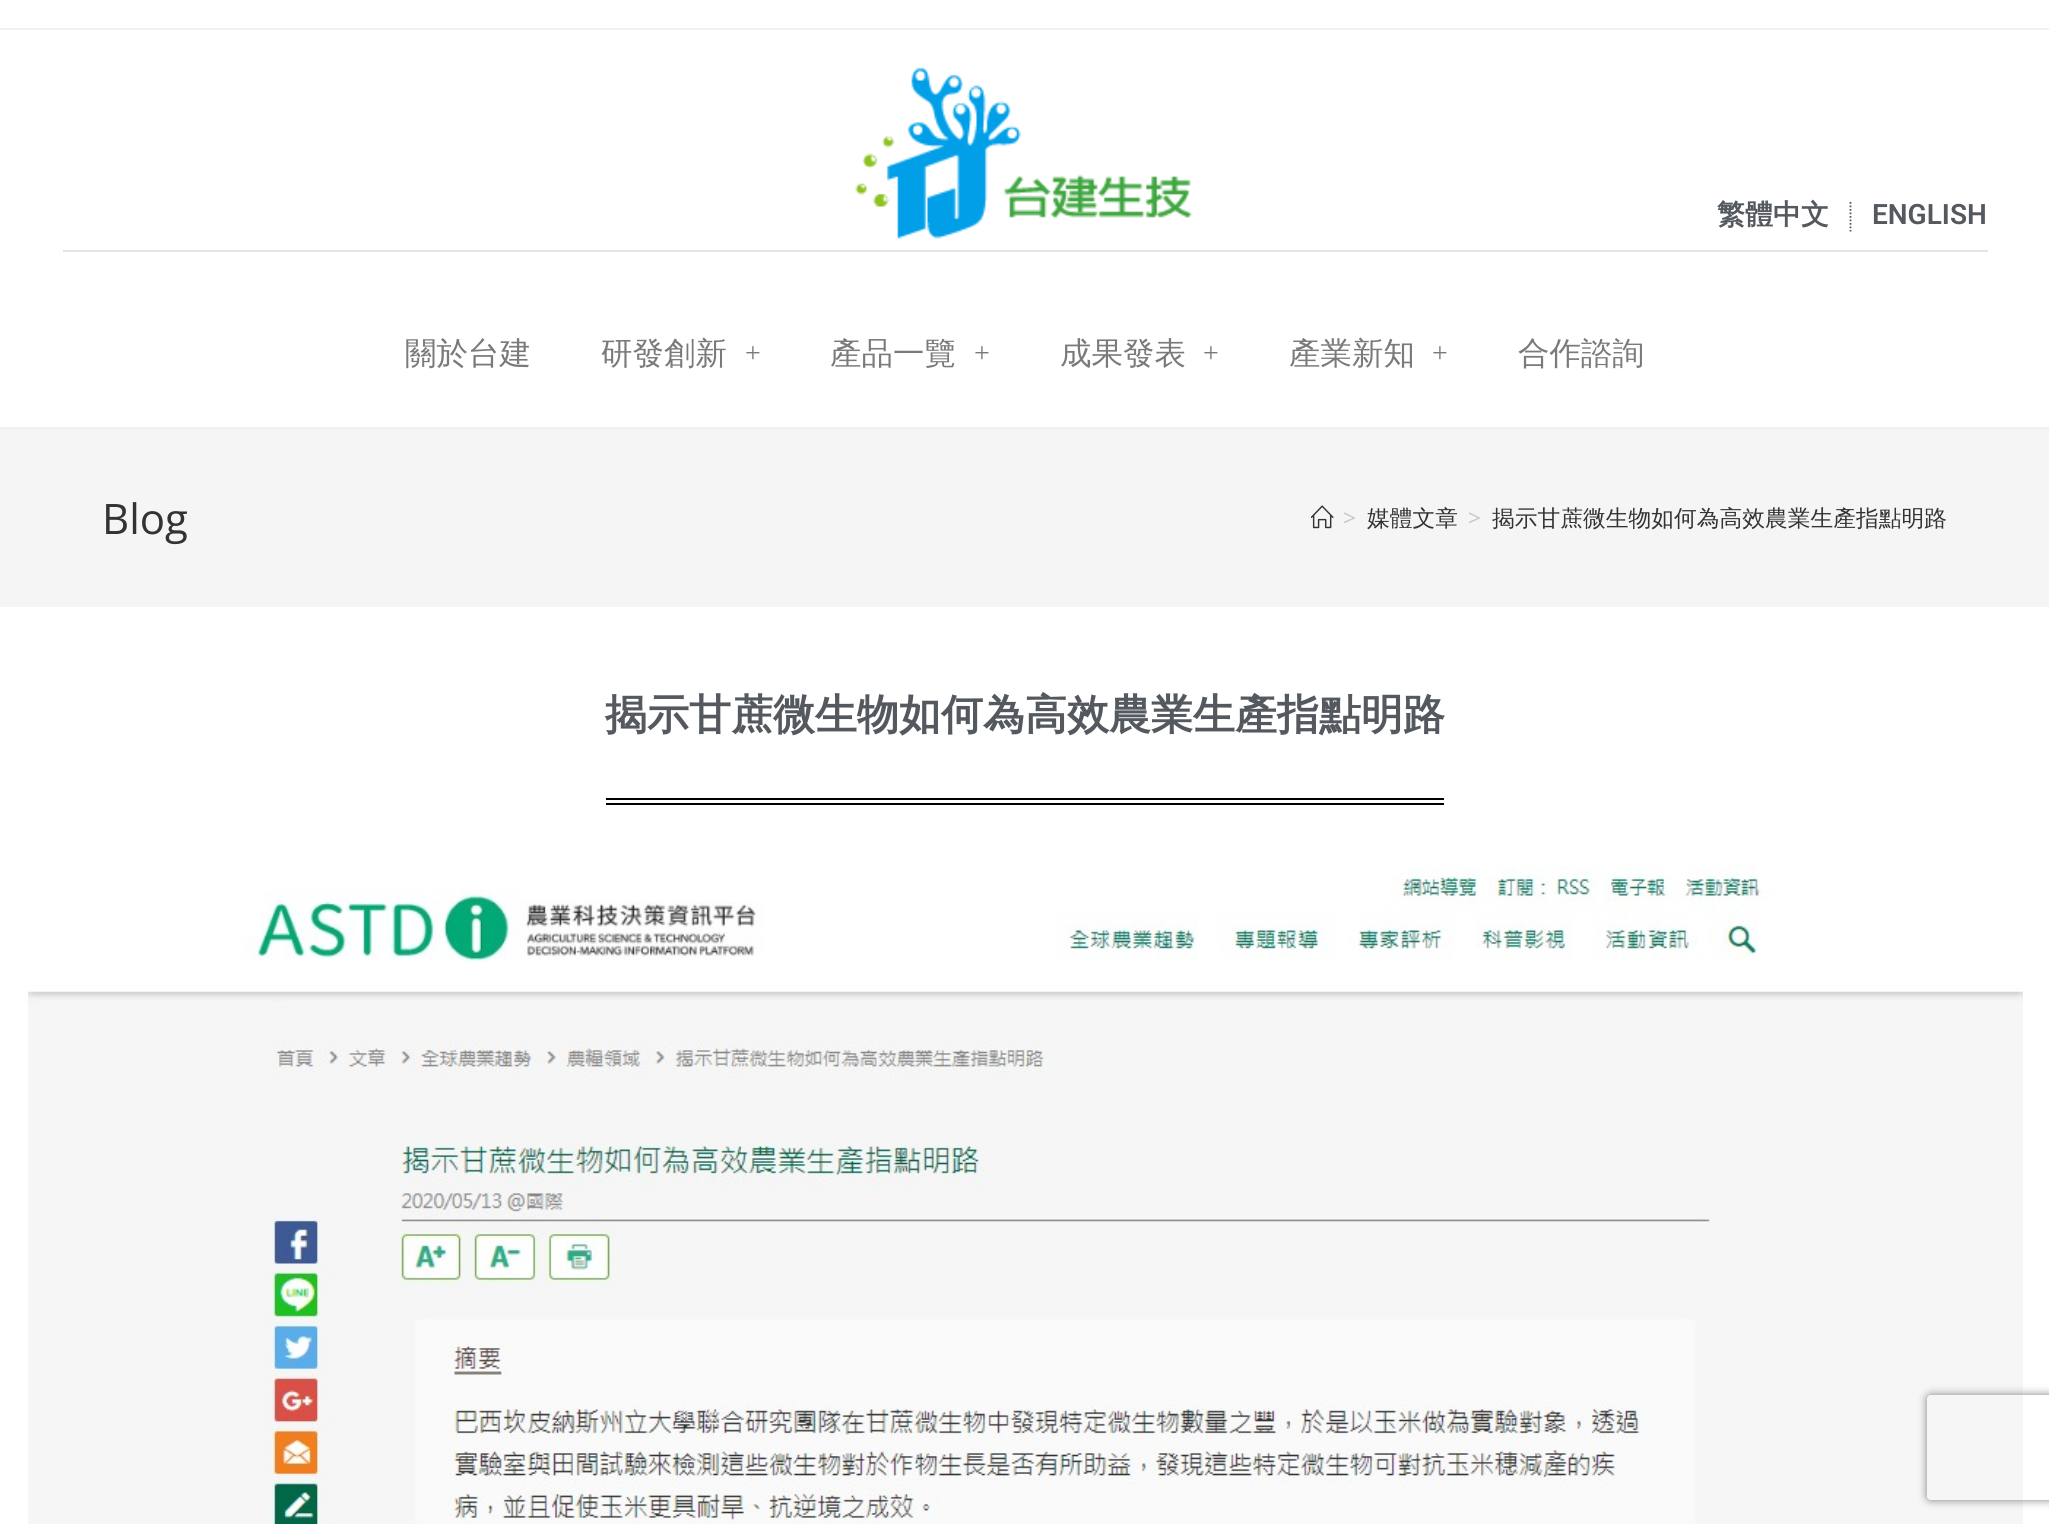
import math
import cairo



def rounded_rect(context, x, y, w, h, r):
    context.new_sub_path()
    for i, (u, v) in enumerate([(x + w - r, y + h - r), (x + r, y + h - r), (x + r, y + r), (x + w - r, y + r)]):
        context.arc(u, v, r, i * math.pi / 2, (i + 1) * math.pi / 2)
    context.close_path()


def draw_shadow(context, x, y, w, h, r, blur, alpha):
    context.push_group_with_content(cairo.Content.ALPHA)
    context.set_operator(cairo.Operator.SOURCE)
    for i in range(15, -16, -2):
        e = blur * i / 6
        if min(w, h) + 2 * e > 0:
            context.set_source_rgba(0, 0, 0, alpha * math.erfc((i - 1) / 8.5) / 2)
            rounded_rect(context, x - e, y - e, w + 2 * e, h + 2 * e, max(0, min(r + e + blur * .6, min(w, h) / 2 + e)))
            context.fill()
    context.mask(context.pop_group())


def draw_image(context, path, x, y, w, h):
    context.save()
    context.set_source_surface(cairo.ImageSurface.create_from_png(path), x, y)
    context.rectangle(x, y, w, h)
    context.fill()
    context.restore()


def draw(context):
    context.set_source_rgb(1, 1, 1)
    context.paint()
    context.set_source_rgb(241 / 255, 241 / 255, 241 / 255)
    context.rectangle(0, 28, 2049, 2)
    context.fill()
    context.rectangle(0, 427, 2049, 2)
    context.fill()
    draw_image(context, "images/1.png", 855, 67, 338, 172)
    context.new_path()
    context.move_to(1850.5, 202)
    context.line_to(1850.5, 231.5)
    context.set_source_rgb(84 / 255, 89 / 255, 95 / 255)
    context.set_line_width(1.8)
    context.set_dash([1.75, 1.75])
    context.stroke()
    context.set_source_rgb(229 / 255, 229 / 255, 229 / 255)
    context.rectangle(63, 250, 1925, 2)
    context.fill()
    context.set_source_rgb(245 / 255, 245 / 255, 245 / 255)
    context.rectangle(0, 429, 2049, 178)
    context.fill()
    draw_image(context, "images/2.png", 1311, 505, 23, 24)
    context.set_source_rgb(0, 0, 0)
    context.rectangle(606, 798, 838, 2)
    context.fill()
    context.rectangle(606, 803, 838, 2)
    context.fill()
    draw_image(context, "images/3.png", 28, 866, 1995, 658)
    context.save()
    context.set_fill_rule(cairo.FillRule.EVEN_ODD)
    context.new_path()
    context.move_to(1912, 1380)
    context.line_to(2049, 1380)
    context.line_to(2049, 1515)
    context.line_to(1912, 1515)
    context.close_path()
    context.move_to(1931, 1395)
    context.line_to(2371, 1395)
    context.curve_to(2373, 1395, 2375, 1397, 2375, 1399)
    context.line_to(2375, 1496)
    context.curve_to(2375, 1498, 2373, 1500, 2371, 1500)
    context.line_to(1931, 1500)
    context.curve_to(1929, 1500, 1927, 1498, 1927, 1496)
    context.line_to(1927, 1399)
    context.curve_to(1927, 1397, 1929, 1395, 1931, 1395)
    context.close_path()
    context.clip()
    context.set_source_rgb(128 / 255, 128 / 255, 128 / 255)
    draw_shadow(context, 1927, 1395, 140, 105, 4, 4.5, 1)
    context.restore()
    context.select_font_face("WenQuanYi Zen Hei", cairo.FontSlant.NORMAL, cairo.FontWeight.BOLD)
    context.set_font_size(28)
    context.set_source_rgb(84 / 255, 89 / 255, 95 / 255)
    context.move_to(1717, 224)
    context.show_text("繁體中文")
    context.select_font_face("Roboto SemiBold")
    context.move_to(1872, 224)
    context.show_text("ENGLISH")
    context.select_font_face("WenQuanYi Zen Hei Medium")
    context.set_font_size(31.5)
    context.set_source_rgb(122 / 255, 122 / 255, 122 / 255)
    context.move_to(405, 364)
    context.show_text("關於台建")
    context.move_to(601, 364)
    context.show_text("研發創新")
    context.select_font_face("Liberation Serif")
    context.set_font_size(28)
    context.move_to(745, 362)
    context.show_text("+")
    context.select_font_face("WenQuanYi Zen Hei Medium")
    context.set_font_size(31.5)
    context.move_to(830, 364)
    context.show_text("產品一覽")
    context.select_font_face("Liberation Serif")
    context.set_font_size(28)
    context.move_to(974, 362)
    context.show_text("+")
    context.select_font_face("WenQuanYi Zen Hei Medium")
    context.set_font_size(31.5)
    context.move_to(1060, 364)
    context.show_text("成果發表")
    context.select_font_face("Liberation Serif")
    context.set_font_size(28)
    context.move_to(1203, 362)
    context.show_text("+")
    context.select_font_face("WenQuanYi Zen Hei Medium")
    context.set_font_size(31.5)
    context.move_to(1289, 364)
    context.show_text("產業新知")
    context.select_font_face("Liberation Serif")
    context.set_font_size(28)
    context.move_to(1432, 362)
    context.show_text("+")
    context.select_font_face("WenQuanYi Zen Hei Medium")
    context.set_font_size(31.5)
    context.move_to(1518, 364)
    context.show_text("合作諮詢")
    context.select_font_face("Open Sans")
    context.set_font_size(42)
    context.set_source_rgb(51 / 255, 51 / 255, 51 / 255)
    context.move_to(102, 534)
    context.show_text("Blog")
    context.set_font_size(22.75)
    context.set_source_rgb(198 / 255, 198 / 255, 198 / 255)
    context.move_to(1343, 526)
    context.show_text(">")
    context.select_font_face("WenQuanYi Zen Hei Medium")
    context.set_source_rgb(51 / 255, 51 / 255, 51 / 255)
    context.move_to(1367, 526)
    context.show_text("媒體文章")
    context.select_font_face("Open Sans")
    context.set_source_rgb(198 / 255, 198 / 255, 198 / 255)
    context.move_to(1468, 526)
    context.show_text(">")
    context.select_font_face("WenQuanYi Zen Hei Medium")
    context.set_source_rgb(51 / 255, 51 / 255, 51 / 255)
    context.move_to(1492, 526)
    context.show_text("揭示甘蔗微生物如何為高效農業生產指點明路")
    context.select_font_face("WenQuanYi Zen Hei", cairo.FontSlant.NORMAL, cairo.FontWeight.BOLD)
    context.set_font_size(42)
    context.set_source_rgb(84 / 255, 89 / 255, 95 / 255)
    context.move_to(605, 729)
    context.show_text("揭示甘蔗微生物如何為高效農業生產指點明路")


surface = cairo.ImageSurface(cairo.Format.RGB24, 2049, 1524)
context = cairo.Context(surface)
options = cairo.FontOptions()
options.set_hint_metrics(cairo.HintMetrics.OFF)
options.set_hint_style(cairo.HintStyle.NONE)
context.set_font_options(options)
context.set_miter_limit(4)
draw(context)
surface.write_to_png("out.png")
